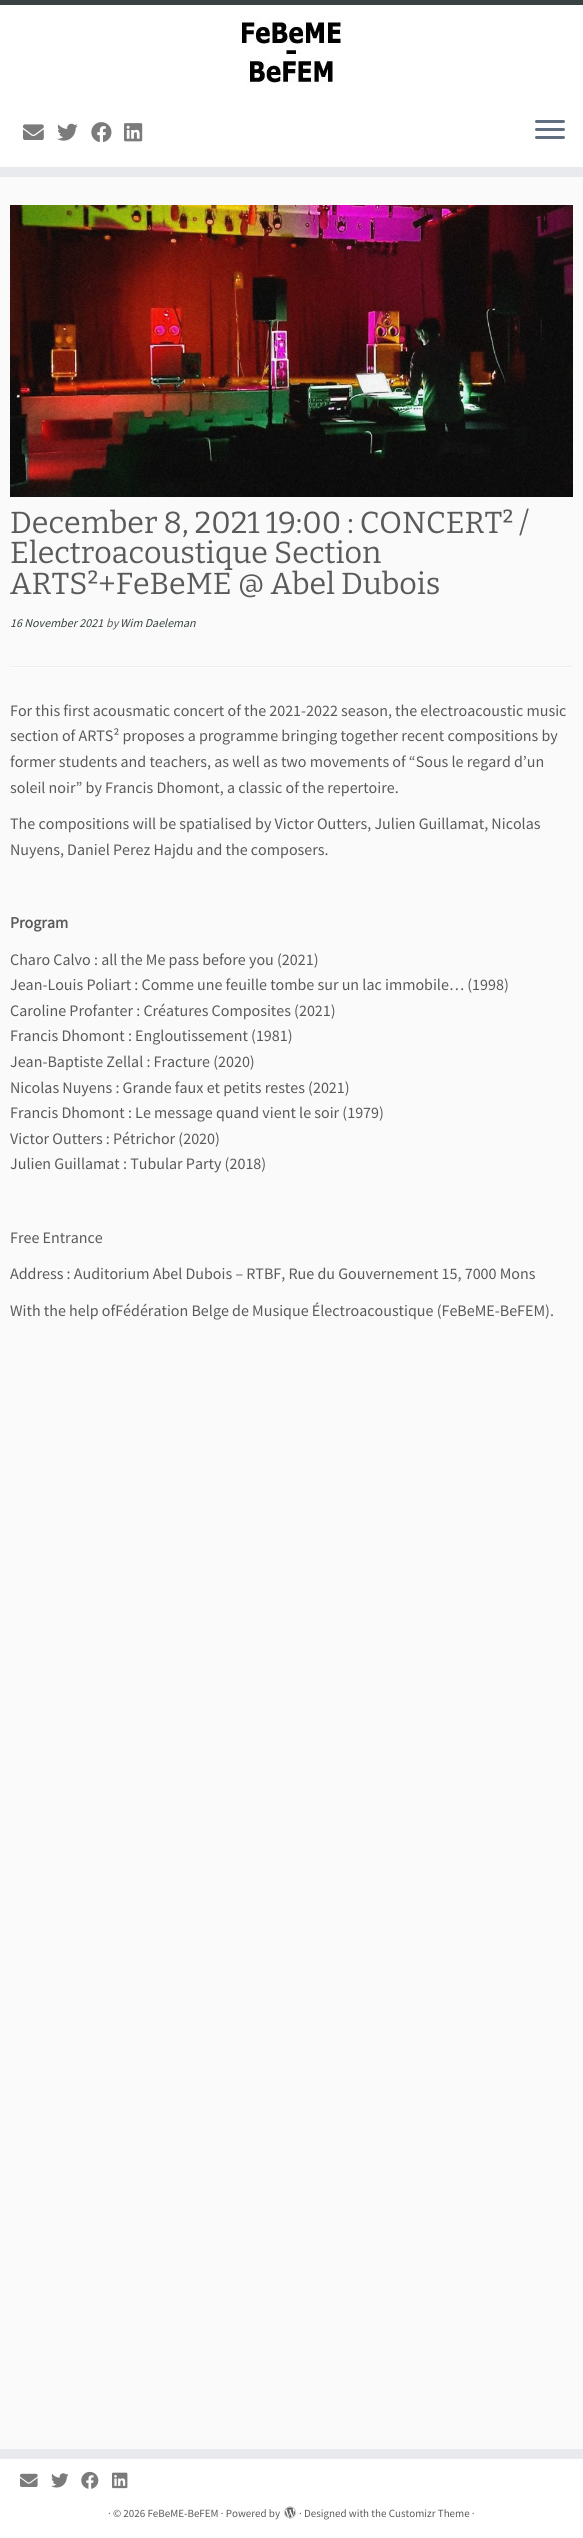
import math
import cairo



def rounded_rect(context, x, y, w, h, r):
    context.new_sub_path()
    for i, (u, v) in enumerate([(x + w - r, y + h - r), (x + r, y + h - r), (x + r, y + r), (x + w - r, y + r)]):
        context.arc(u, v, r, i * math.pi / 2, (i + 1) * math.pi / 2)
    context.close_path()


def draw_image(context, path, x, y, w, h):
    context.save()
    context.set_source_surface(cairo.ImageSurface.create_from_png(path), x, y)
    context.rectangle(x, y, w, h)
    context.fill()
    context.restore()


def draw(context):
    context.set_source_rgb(250 / 255, 250 / 255, 250 / 255)
    context.paint()
    context.set_source_rgb(1, 1, 1)
    context.rectangle(0, 5, 583, 162)
    context.fill()
    context.set_source_rgb(57 / 255, 65 / 255, 67 / 255)
    context.rectangle(0, 0, 583, 5)
    context.fill()
    context.set_source_rgb(233 / 255, 234 / 255, 238 / 255)
    context.rectangle(0, 167, 583, 10)
    context.fill()
    draw_image(context, "images/1.png", 239, 15, 103, 72)
    draw_image(context, "images/2.png", 23, 124, 21, 16)
    draw_image(context, "images/3.png", 57, 123, 21, 18)
    draw_image(context, "images/4.png", 91, 122, 21, 21)
    draw_image(context, "images/5.png", 124, 123, 19, 19)
    context.set_source_rgb(95 / 255, 111 / 255, 129 / 255)
    rounded_rect(context, 535, 120, 30, 3, 1.5)
    context.fill()
    rounded_rect(context, 535, 128, 30, 3, 1.5)
    context.fill()
    rounded_rect(context, 535, 136, 30, 3, 1.5)
    context.fill()
    draw_image(context, "images/6.png", 10, 205, 563, 292)
    context.set_source_rgb(238 / 255, 238 / 255, 238 / 255)
    context.rectangle(10, 666, 563, 1)
    context.fill()
    context.set_source_rgb(1, 1, 1)
    context.rectangle(10, 667, 563, 1)
    context.fill()
    context.set_source_rgb(233 / 255, 234 / 255, 238 / 255)
    context.rectangle(0, 2449, 583, 10)
    context.fill()
    context.set_source_rgb(1, 1, 1)
    context.rectangle(0, 2459, 583, 79)
    context.fill()
    draw_image(context, "images/7.png", 20, 2473, 18, 14)
    draw_image(context, "images/8.png", 51, 2473, 18, 15)
    draw_image(context, "images/9.png", 81, 2471, 18, 18)
    draw_image(context, "images/10.png", 112, 2472, 16, 17)
    draw_image(context, "images/11.png", 284, 2506, 12, 13)
    context.select_font_face("Bitter Thin")
    context.set_font_size(30.4)
    context.set_source_rgb(90 / 255, 90 / 255, 90 / 255)
    context.move_to(10, 533)
    context.show_text("December 8, 2021 19:00 : CONCERT² /")
    context.move_to(10, 563)
    context.show_text("Electroacoustique Section")
    context.move_to(10, 594)
    context.show_text("ARTS²+FeBeME @ Abel Dubois")
    context.select_font_face("Source Sans Pro", cairo.FontSlant.ITALIC)
    context.set_font_size(12)
    context.set_source_rgb(57 / 255, 65 / 255, 67 / 255)
    context.move_to(10, 627)
    context.show_text("16 November 2021")
    context.set_source_rgb(90 / 255, 90 / 255, 90 / 255)
    context.move_to(106, 627)
    context.show_text("by")
    context.set_source_rgb(57 / 255, 65 / 255, 67 / 255)
    context.move_to(120, 627)
    context.show_text("Wim Daeleman")
    context.select_font_face("Source Sans Pro")
    context.set_font_size(16)
    context.set_source_rgb(90 / 255, 90 / 255, 90 / 255)
    context.move_to(10, 716)
    context.show_text("For this first acousmatic concert of the 2021-2022 season, the electroacoustic music")
    context.move_to(10, 741)
    context.show_text("section of ARTS² proposes a programme bringing together recent compositions by")
    context.move_to(10, 767)
    context.show_text("former students and teachers, as well as two movements of “Sous le regard d’un")
    context.move_to(10, 793)
    context.show_text("soleil noir” by Francis Dhomont, a classic of the repertoire.")
    context.move_to(10, 829)
    context.show_text("The compositions will be spatialised by Victor Outters, Julien Guillamat, Nicolas")
    context.move_to(10, 855)
    context.show_text("Nuyens, Daniel Perez Hajdu and the composers.")
    context.select_font_face("Source Sans Pro", cairo.FontSlant.NORMAL, cairo.FontWeight.BOLD)
    context.move_to(10, 928)
    context.show_text("Program")
    context.select_font_face("Source Sans Pro")
    context.move_to(10, 965)
    context.show_text("Charo Calvo : all the Me pass before you (2021)")
    context.move_to(10, 990)
    context.show_text("Jean-Louis Poliart : Comme une feuille tombe sur un lac immobile… (1998)")
    context.move_to(10, 1016)
    context.show_text("Caroline Profanter : Créatures Composites (2021)")
    context.move_to(10, 1041)
    context.show_text("Francis Dhomont : Engloutissement (1981)")
    context.move_to(10, 1067)
    context.show_text("Jean-Baptiste Zellal : Fracture (2020)")
    context.move_to(10, 1093)
    context.show_text("Nicolas Nuyens : Grande faux et petits restes (2021)")
    context.move_to(10, 1118)
    context.show_text("Francis Dhomont : Le message quand vient le soir (1979)")
    context.move_to(10, 1144)
    context.show_text("Victor Outters : Pétrichor (2020)")
    context.move_to(10, 1169)
    context.show_text("Julien Guillamat : Tubular Party (2018)")
    context.move_to(10, 1243)
    context.show_text("Free Entrance")
    context.move_to(10, 1279)
    context.show_text("Address : Auditorium Abel Dubois – RTBF, Rue du Gouvernement 15, 7000 Mons")
    context.move_to(10, 1316)
    context.show_text("With the help ofFédération Belge de Musique Électroacoustique (FeBeME-BeFEM).")
    context.set_font_size(11)
    context.move_to(108, 2517)
    context.show_text("· © 2026 FeBeME-BeFEM · Powered by")
    context.move_to(299, 2517)
    context.show_text("· Designed with the Customizr Theme ·")


surface = cairo.ImageSurface(cairo.Format.RGB24, 583, 2538)
context = cairo.Context(surface)
options = cairo.FontOptions()
options.set_hint_metrics(cairo.HintMetrics.OFF)
options.set_hint_style(cairo.HintStyle.NONE)
context.set_font_options(options)
context.set_miter_limit(4)
draw(context)
surface.write_to_png("out.png")
